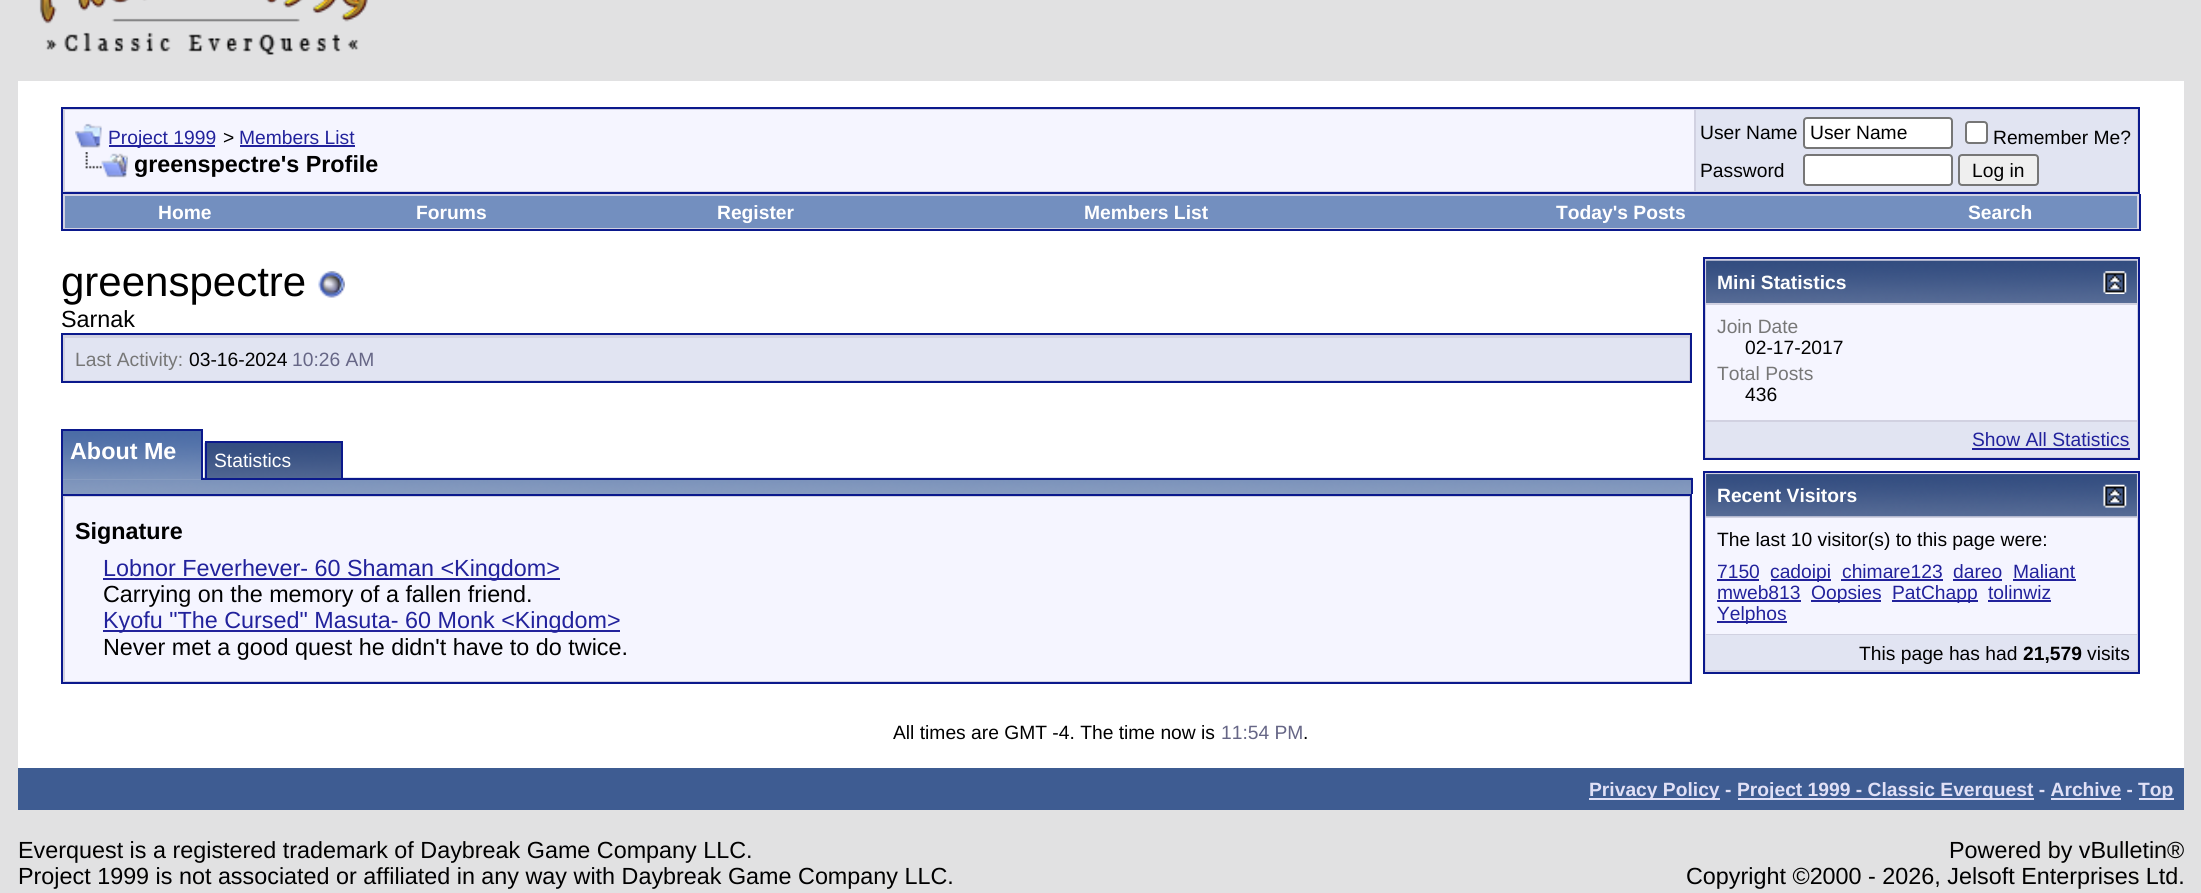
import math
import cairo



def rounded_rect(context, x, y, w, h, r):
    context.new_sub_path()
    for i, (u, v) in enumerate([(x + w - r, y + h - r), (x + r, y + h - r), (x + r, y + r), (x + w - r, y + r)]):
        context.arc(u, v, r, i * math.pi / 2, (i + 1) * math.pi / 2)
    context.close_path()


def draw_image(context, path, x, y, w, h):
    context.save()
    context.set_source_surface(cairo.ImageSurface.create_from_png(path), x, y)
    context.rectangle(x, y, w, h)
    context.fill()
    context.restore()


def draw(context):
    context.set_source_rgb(225 / 255, 225 / 255, 226 / 255)
    context.paint()
    draw_image(context, "images/1.png", 39, 0, 329, 55)
    context.set_source_rgb(1, 1, 1)
    context.rectangle(18, 81, 2166, 687)
    context.fill()
    context.set_source_rgb(209 / 255, 209 / 255, 225 / 255)
    context.rectangle(62, 108, 2077, 85)
    context.fill_preserve()
    context.set_source_rgb(11 / 255, 25 / 255, 140 / 255)
    context.stroke()
    context.set_source_rgb(245 / 255, 245 / 255, 1)
    context.rectangle(65, 110, 1629, 81)
    context.fill()
    draw_image(context, "images/2.png", 75, 123, 27, 25)
    context.set_source_rgb(34 / 255, 34 / 255, 156 / 255)
    context.rectangle(109, 145, 106, 2)
    context.fill()
    context.rectangle(240, 145, 115, 2)
    context.fill()
    draw_image(context, "images/3.png", 85, 152, 43, 26)
    context.set_source_rgb(225 / 255, 228 / 255, 242 / 255)
    context.rectangle(1696, 110, 441, 81)
    context.fill()
    context.set_source_rgb(1, 1, 1)
    rounded_rect(context, 1804, 118, 148, 30, 3)
    context.fill_preserve()
    context.set_source_rgb(118 / 255, 118 / 255, 118 / 255)
    context.stroke()
    context.set_source_rgb(1, 1, 1)
    rounded_rect(context, 1966, 122, 21, 21, 3)
    context.fill_preserve()
    context.set_source_rgb(118 / 255, 118 / 255, 118 / 255)
    context.stroke()
    context.set_source_rgb(1, 1, 1)
    rounded_rect(context, 1804, 155, 148, 30, 3)
    context.fill_preserve()
    context.set_source_rgb(118 / 255, 118 / 255, 118 / 255)
    context.stroke()
    context.set_source_rgb(239 / 255, 239 / 255, 239 / 255)
    rounded_rect(context, 1959, 155, 79, 30, 3)
    context.fill_preserve()
    context.set_source_rgb(118 / 255, 118 / 255, 118 / 255)
    context.stroke()
    context.set_source_rgb(209 / 255, 209 / 255, 225 / 255)
    context.rectangle(63, 194, 2076, 35)
    context.fill()
    context.set_source_rgb(11 / 255, 25 / 255, 140 / 255)
    context.rectangle(2139, 194, 2, 37)
    context.fill()
    context.rectangle(61, 229, 2079, 2)
    context.fill()
    context.rectangle(61, 194, 2, 37)
    context.fill()
    context.set_source_rgb(115 / 255, 143 / 255, 191 / 255)
    context.rectangle(65, 196, 2072, 32)
    context.fill()
    draw_image(context, "images/4.png", 318, 271, 27, 27)
    context.set_source_rgb(209 / 255, 209 / 255, 225 / 255)
    context.rectangle(62, 334, 1629, 48)
    context.fill_preserve()
    context.set_source_rgb(11 / 255, 25 / 255, 140 / 255)
    context.stroke()
    context.set_source_rgb(225 / 255, 228 / 255, 242 / 255)
    context.rectangle(65, 338, 1624, 42)
    context.fill()
    context.set_source_rgb(134 / 255, 155 / 255, 191 / 255)
    context.rectangle(63, 493, 1628, 1)
    context.fill()
    draw_image(context, "images/7.png", 63, 477, 1630, 17)
    context.rectangle(63, 479, 138, 1)
    context.fill()
    draw_image(context, "images/5.png", 63, 431, 138, 48)
    context.set_source_rgb(11 / 255, 25 / 255, 140 / 255)
    context.rectangle(61, 429, 142, 2)
    context.fill()
    context.rectangle(201, 429, 2, 51)
    context.fill()
    context.rectangle(61, 478, 2, 16)
    context.fill()
    context.rectangle(61, 429, 2, 51)
    context.fill()
    context.rectangle(203, 478, 1489, 2)
    context.fill()
    draw_image(context, "images/6.png", 204, 442, 137, 38)
    context.rectangle(206, 442, 136, 37)
    context.stroke()
    context.rectangle(1691, 478, 2, 16)
    context.fill()
    context.set_source_rgb(209 / 255, 209 / 255, 225 / 255)
    context.rectangle(62, 495, 1629, 188)
    context.fill_preserve()
    context.set_source_rgb(11 / 255, 25 / 255, 140 / 255)
    context.stroke()
    context.set_source_rgb(245 / 255, 245 / 255, 1)
    context.rectangle(65, 497, 1624, 184)
    context.fill()
    context.set_source_rgb(34 / 255, 34 / 255, 156 / 255)
    context.rectangle(103, 578, 457, 2)
    context.fill()
    context.rectangle(103, 630, 517, 2)
    context.fill()
    context.set_source_rgb(209 / 255, 209 / 255, 225 / 255)
    context.rectangle(1704, 258, 435, 201)
    context.fill_preserve()
    context.set_source_rgb(11 / 255, 25 / 255, 140 / 255)
    context.stroke()
    context.set_source_rgb(92 / 255, 112 / 255, 153 / 255)
    context.rectangle(1706, 261, 431, 42)
    context.fill()
    draw_image(context, "images/8.png", 1706, 260, 431, 43)
    draw_image(context, "images/9.png", 2103, 271, 24, 23)
    context.set_source_rgb(245 / 255, 245 / 255, 1)
    context.rectangle(1706, 305, 431, 115)
    context.fill()
    context.set_source_rgb(225 / 255, 228 / 255, 242 / 255)
    context.rectangle(1706, 422, 431, 35)
    context.fill()
    context.set_source_rgb(34 / 255, 34 / 255, 156 / 255)
    context.rectangle(1972, 448, 158, 2)
    context.fill()
    context.set_source_rgb(209 / 255, 209 / 255, 225 / 255)
    context.rectangle(1704, 472, 435, 201)
    context.fill_preserve()
    context.set_source_rgb(11 / 255, 25 / 255, 140 / 255)
    context.stroke()
    context.set_source_rgb(92 / 255, 112 / 255, 153 / 255)
    context.rectangle(1706, 474, 431, 42)
    context.fill()
    draw_image(context, "images/10.png", 1706, 474, 431, 43)
    draw_image(context, "images/11.png", 2103, 484, 24, 24)
    context.set_source_rgb(245 / 255, 245 / 255, 1)
    context.rectangle(1706, 518, 431, 116)
    context.fill()
    context.set_source_rgb(34 / 255, 34 / 255, 156 / 255)
    context.rectangle(1717, 579, 42, 2)
    context.fill()
    context.rectangle(1771, 579, 60, 2)
    context.fill()
    context.rectangle(1841, 579, 102, 2)
    context.fill()
    context.rectangle(1953, 579, 49, 2)
    context.fill()
    context.rectangle(2013, 579, 63, 2)
    context.fill()
    context.rectangle(1717, 600, 84, 2)
    context.fill()
    context.rectangle(1811, 600, 70, 2)
    context.fill()
    context.rectangle(1892, 600, 86, 2)
    context.fill()
    context.rectangle(1988, 600, 63, 2)
    context.fill()
    context.rectangle(1717, 621, 70, 2)
    context.fill()
    context.set_source_rgb(225 / 255, 228 / 255, 242 / 255)
    context.rectangle(1706, 635, 431, 35)
    context.fill()
    context.set_source_rgb(62 / 255, 92 / 255, 146 / 255)
    context.rectangle(18, 768, 2166, 42)
    context.fill()
    context.set_source_rgb(224 / 255, 224 / 255, 246 / 255)
    context.rectangle(1589, 798, 131, 2)
    context.fill()
    context.rectangle(1738, 798, 296, 2)
    context.fill()
    context.rectangle(2051, 798, 70, 2)
    context.fill()
    context.rectangle(2139, 798, 35, 2)
    context.fill()
    context.select_font_face("Liberation Sans")
    context.set_font_size(19.25)
    context.set_source_rgb(34 / 255, 34 / 255, 156 / 255)
    context.move_to(108, 144)
    context.show_text("Project 1999")
    context.set_source_rgb(0, 0, 0)
    context.move_to(223, 144)
    context.show_text(">")
    context.set_source_rgb(34 / 255, 34 / 255, 156 / 255)
    context.move_to(239, 144)
    context.show_text("Members List")
    context.select_font_face("Liberation Sans", cairo.FontSlant.NORMAL, cairo.FontWeight.BOLD)
    context.set_font_size(23.35)
    context.set_source_rgb(0, 0, 0)
    context.move_to(134, 172)
    context.show_text("greenspectre's Profile")
    context.select_font_face("Liberation Sans")
    context.set_font_size(19.25)
    context.move_to(1700, 139)
    context.show_text("User Name")
    context.move_to(1810, 139)
    context.show_text("User Name")
    context.move_to(1993, 144)
    context.show_text("Remember Me?")
    context.move_to(1700, 177)
    context.show_text("Password")
    context.move_to(1972, 177)
    context.show_text("Log in")
    context.select_font_face("Liberation Sans", cairo.FontSlant.NORMAL, cairo.FontWeight.BOLD)
    context.set_source_rgb(1, 1, 1)
    context.move_to(158, 219)
    context.show_text("Home")
    context.move_to(416, 219)
    context.show_text("Forums")
    context.move_to(717, 219)
    context.show_text("Register")
    context.move_to(1084, 219)
    context.show_text("Members List")
    context.move_to(1556, 219)
    context.show_text("Today's Posts")
    context.move_to(1968, 219)
    context.show_text("Search")
    context.select_font_face("Liberation Sans")
    context.set_font_size(42)
    context.set_source_rgb(0, 0, 0)
    context.move_to(61, 296)
    context.show_text("greenspectre")
    context.set_font_size(23.35)
    context.move_to(61, 327)
    context.show_text("Sarnak")
    context.set_font_size(19.25)
    context.set_source_rgb(119 / 255, 119 / 255, 119 / 255)
    context.move_to(75, 366)
    context.show_text("Last Activity:")
    context.set_source_rgb(0, 0, 0)
    context.move_to(189, 366)
    context.show_text("03-16-2024")
    context.set_source_rgb(102 / 255, 102 / 255, 134 / 255)
    context.move_to(292, 366)
    context.show_text("10:26 AM")
    context.select_font_face("Liberation Sans", cairo.FontSlant.NORMAL, cairo.FontWeight.BOLD)
    context.set_font_size(23.35)
    context.set_source_rgb(1, 1, 1)
    context.move_to(70, 459)
    context.show_text("About Me")
    context.select_font_face("Liberation Sans")
    context.set_font_size(19.25)
    context.move_to(214, 467)
    context.show_text("Statistics")
    context.select_font_face("Liberation Sans", cairo.FontSlant.NORMAL, cairo.FontWeight.BOLD)
    context.set_font_size(23.35)
    context.set_source_rgb(0, 0, 0)
    context.move_to(75, 539)
    context.show_text("Signature")
    context.select_font_face("Liberation Sans")
    context.set_source_rgb(34 / 255, 34 / 255, 156 / 255)
    context.move_to(103, 576)
    context.show_text("Lobnor Feverhever- 60 Shaman <Kingdom>")
    context.set_source_rgb(0, 0, 0)
    context.move_to(103, 602)
    context.show_text("Carrying on the memory of a fallen friend.")
    context.set_source_rgb(34 / 255, 34 / 255, 156 / 255)
    context.move_to(103, 628)
    context.show_text("Kyofu \"The Cursed\" Masuta- 60 Monk <Kingdom>")
    context.set_source_rgb(0, 0, 0)
    context.move_to(103, 655)
    context.show_text("Never met a good quest he didn't have to do twice.")
    context.select_font_face("Liberation Sans", cairo.FontSlant.NORMAL, cairo.FontWeight.BOLD)
    context.set_font_size(19.25)
    context.set_source_rgb(1, 1, 1)
    context.move_to(1717, 289)
    context.show_text("Mini Statistics")
    context.select_font_face("Liberation Sans")
    context.set_source_rgb(119 / 255, 119 / 255, 119 / 255)
    context.move_to(1717, 333)
    context.show_text("Join Date")
    context.set_source_rgb(0, 0, 0)
    context.move_to(1745, 354)
    context.show_text("02-17-2017")
    context.set_source_rgb(119 / 255, 119 / 255, 119 / 255)
    context.move_to(1717, 380)
    context.show_text("Total Posts")
    context.set_source_rgb(0, 0, 0)
    context.move_to(1745, 401)
    context.show_text("436")
    context.set_source_rgb(34 / 255, 34 / 255, 156 / 255)
    context.move_to(1972, 446)
    context.show_text("Show All Statistics")
    context.select_font_face("Liberation Sans", cairo.FontSlant.NORMAL, cairo.FontWeight.BOLD)
    context.set_source_rgb(1, 1, 1)
    context.move_to(1717, 502)
    context.show_text("Recent Visitors")
    context.select_font_face("Liberation Sans")
    context.set_source_rgb(0, 0, 0)
    context.move_to(1717, 546)
    context.show_text("The last 10 visitor(s) to this page were:")
    context.set_source_rgb(34 / 255, 34 / 255, 156 / 255)
    context.move_to(1717, 578)
    context.show_text("7150")
    context.move_to(1770, 578)
    context.show_text("cadoipi")
    context.move_to(1842, 578)
    context.show_text("chimare123")
    context.move_to(1953, 578)
    context.show_text("dareo")
    context.move_to(2013, 578)
    context.show_text("Maliant")
    context.move_to(1717, 599)
    context.show_text("mweb813")
    context.move_to(1811, 599)
    context.show_text("Oopsies")
    context.move_to(1892, 599)
    context.show_text("PatChapp")
    context.move_to(1988, 599)
    context.show_text("tolinwiz")
    context.move_to(1717, 620)
    context.show_text("Yelphos")
    context.set_source_rgb(0, 0, 0)
    context.move_to(1859, 660)
    context.show_text("This page has had")
    context.select_font_face("Liberation Sans", cairo.FontSlant.NORMAL, cairo.FontWeight.BOLD)
    context.move_to(2023, 660)
    context.show_text("21,579")
    context.select_font_face("Liberation Sans")
    context.move_to(2087, 660)
    context.show_text("visits")
    context.move_to(893, 739)
    context.show_text("All times are GMT -4. The time now is")
    context.set_source_rgb(102 / 255, 102 / 255, 134 / 255)
    context.move_to(1221, 739)
    context.show_text("11:54 PM")
    context.set_source_rgb(0, 0, 0)
    context.move_to(1303, 739)
    context.show_text(".")
    context.select_font_face("Liberation Sans", cairo.FontSlant.NORMAL, cairo.FontWeight.BOLD)
    context.set_source_rgb(224 / 255, 224 / 255, 246 / 255)
    context.move_to(1589, 796)
    context.show_text("Privacy Policy -")
    context.move_to(1737, 796)
    context.show_text("Project 1999 - Classic Everquest - Archive -")
    context.move_to(2138, 796)
    context.show_text("Top")
    context.select_font_face("Liberation Sans")
    context.set_font_size(23.35)
    context.set_source_rgb(0, 0, 0)
    context.move_to(18, 858)
    context.show_text("Everquest is a registered trademark of Daybreak Game Company LLC.")
    context.move_to(18, 884)
    context.show_text("Project 1999 is not associated or affiliated in any way with Daybreak Game Company LLC.")
    context.move_to(1949, 858)
    context.show_text("Powered by vBulletin®")
    context.move_to(1686, 884)
    context.show_text("Copyright ©2000 - 2026, Jelsoft Enterprises Ltd.")


surface = cairo.ImageSurface(cairo.Format.RGB24, 2201, 893)
context = cairo.Context(surface)
options = cairo.FontOptions()
options.set_hint_metrics(cairo.HintMetrics.OFF)
options.set_hint_style(cairo.HintStyle.NONE)
context.set_font_options(options)
context.set_miter_limit(4)
draw(context)
surface.write_to_png("out.png")
